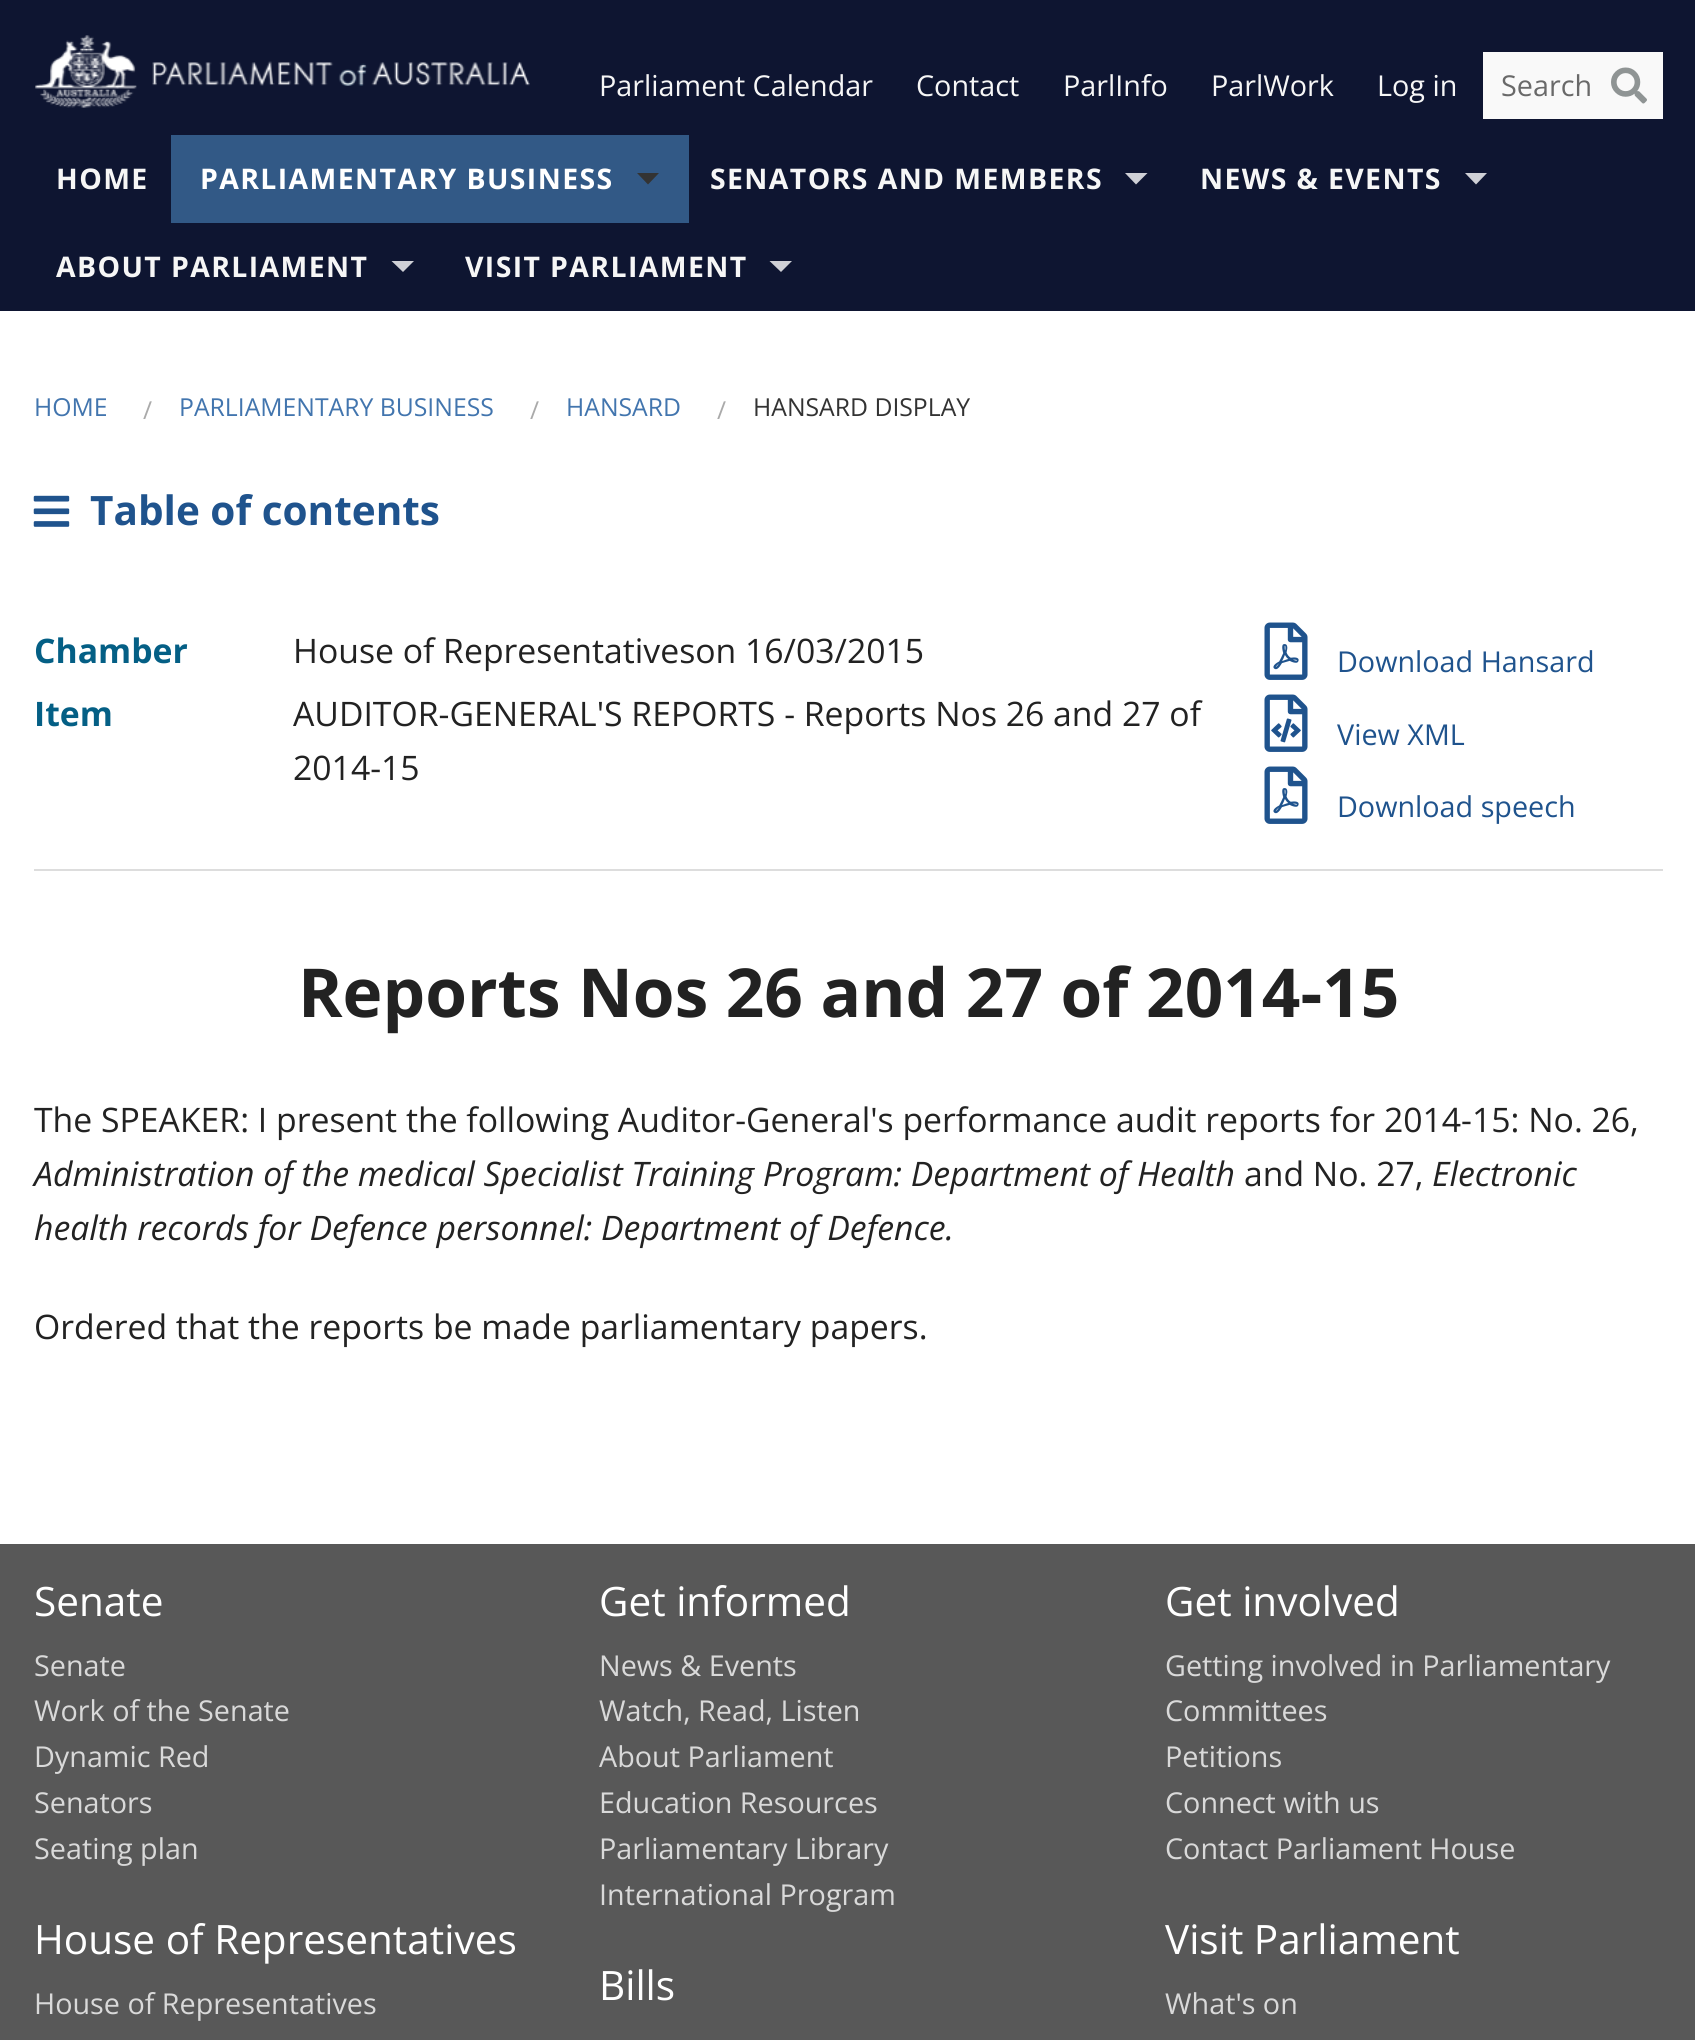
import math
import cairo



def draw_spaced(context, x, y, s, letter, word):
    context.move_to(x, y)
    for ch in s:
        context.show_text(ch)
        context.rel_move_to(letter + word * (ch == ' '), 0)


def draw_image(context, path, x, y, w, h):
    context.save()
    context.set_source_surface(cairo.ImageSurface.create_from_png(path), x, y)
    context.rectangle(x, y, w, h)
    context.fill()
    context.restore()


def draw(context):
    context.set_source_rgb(1, 1, 1)
    context.paint()
    context.set_source_rgb(14 / 255, 21 / 255, 49 / 255)
    context.rectangle(0, 0, 1695, 311)
    context.fill()
    draw_image(context, "images/1.png", 35, 35, 495, 73)
    context.set_source_rgb(249 / 255, 249 / 255, 249 / 255)
    context.rectangle(1483, 52, 180, 67)
    context.fill()
    draw_image(context, "images/2.png", 1611, 67, 36, 37)
    context.set_source_rgb(50 / 255, 89 / 255, 134 / 255)
    context.rectangle(171, 135, 518, 88)
    context.fill()
    context.set_source_rgb(51 / 255, 51 / 255, 51 / 255)
    context.new_path()
    context.move_to(637, 173)
    context.line_to(659, 173)
    context.line_to(648, 184.5)
    context.close_path()
    context.fill()
    context.set_source_rgb(207 / 255, 208 / 255, 214 / 255)
    context.new_path()
    context.move_to(1125, 173)
    context.line_to(1147.5, 173)
    context.line_to(1136, 184.5)
    context.close_path()
    context.fill()
    context.new_path()
    context.move_to(1465, 173)
    context.line_to(1487, 173)
    context.line_to(1476, 184.5)
    context.close_path()
    context.fill()
    context.new_path()
    context.move_to(391.5, 261)
    context.line_to(414, 261)
    context.line_to(403, 272)
    context.close_path()
    context.fill()
    context.new_path()
    context.move_to(769.5, 261)
    context.line_to(792, 261)
    context.line_to(781, 272)
    context.close_path()
    context.fill()
    draw_image(context, "images/3.png", 33, 495, 37, 32)
    draw_image(context, "images/4.png", 1264, 622, 44, 58)
    draw_image(context, "images/5.png", 1264, 694, 44, 58)
    draw_image(context, "images/4.png", 1264, 766, 44, 58)
    context.set_source_rgb(221 / 255, 221 / 255, 221 / 255)
    context.rectangle(34, 869, 1629, 2)
    context.fill()
    context.set_source_rgb(88 / 255, 88 / 255, 88 / 255)
    context.rectangle(0, 1544, 1695, 496)
    context.fill()
    context.select_font_face("Open Sans")
    context.set_font_size(28.75)
    context.set_source_rgb(246 / 255, 246 / 255, 246 / 255)
    context.move_to(599, 96)
    context.show_text("Parliament Calendar")
    context.move_to(916, 96)
    context.show_text("Contact")
    context.move_to(1063, 96)
    context.show_text("ParlInfo")
    context.move_to(1211, 96)
    context.show_text("ParlWork")
    context.move_to(1377, 96)
    context.show_text("Log in")
    context.set_source_rgb(105 / 255, 105 / 255, 105 / 255)
    context.move_to(1501, 96)
    context.show_text("Search")
    context.select_font_face("Open Sans", cairo.FontSlant.NORMAL, cairo.FontWeight.BOLD)
    context.set_font_size(28.4)
    context.set_source_rgb(246 / 255, 246 / 255, 246 / 255)
    draw_spaced(context, 56, 189, "HOME", 1.4, 0)
    context.set_source_rgb(1, 1, 1)
    draw_spaced(context, 200, 189, "PARLIAMENTARY BUSINESS", 1.4, 0)
    context.set_source_rgb(246 / 255, 246 / 255, 246 / 255)
    draw_spaced(context, 710, 189, "SENATORS AND MEMBERS", 1.4, 0)
    draw_spaced(context, 1200, 189, "NEWS & EVENTS", 1.4, 0)
    draw_spaced(context, 56, 277, "ABOUT PARLIAMENT", 1.4, 0)
    draw_spaced(context, 465, 277, "VISIT PARLIAMENT", 1.4, 0)
    context.select_font_face("Open Sans")
    context.set_font_size(24.75)
    context.set_source_rgb(66 / 255, 117 / 255, 174 / 255)
    context.move_to(34, 416)
    context.show_text("HOME")
    context.set_source_rgb(170 / 255, 170 / 255, 170 / 255)
    context.move_to(143, 419)
    context.show_text("/")
    context.set_source_rgb(66 / 255, 117 / 255, 174 / 255)
    context.move_to(179, 416)
    context.show_text("PARLIAMENTARY BUSINESS")
    context.set_source_rgb(170 / 255, 170 / 255, 170 / 255)
    context.move_to(530, 419)
    context.show_text("/")
    context.set_source_rgb(66 / 255, 117 / 255, 174 / 255)
    context.move_to(566, 416)
    context.show_text("HANSARD")
    context.set_source_rgb(170 / 255, 170 / 255, 170 / 255)
    context.move_to(717, 419)
    context.show_text("/")
    context.set_source_rgb(51 / 255, 51 / 255, 51 / 255)
    context.move_to(753, 416)
    context.show_text("HANSARD DISPLAY")
    context.select_font_face("Open Sans", cairo.FontSlant.NORMAL, cairo.FontWeight.BOLD)
    context.set_font_size(40.5)
    context.set_source_rgb(31 / 255, 83 / 255, 141 / 255)
    context.move_to(90, 525)
    context.show_text("Table of contents")
    context.set_font_size(33.75)
    context.set_source_rgb(4 / 255, 95 / 255, 133 / 255)
    context.move_to(34, 663)
    context.show_text("Chamber")
    context.select_font_face("Open Sans")
    context.set_source_rgb(34 / 255, 34 / 255, 34 / 255)
    context.move_to(293, 663)
    context.show_text("House of Representativeson 16/03/2015")
    context.select_font_face("Open Sans", cairo.FontSlant.NORMAL, cairo.FontWeight.BOLD)
    context.set_source_rgb(4 / 255, 95 / 255, 133 / 255)
    context.move_to(34, 726)
    context.show_text("Item")
    context.select_font_face("Open Sans")
    context.set_source_rgb(34 / 255, 34 / 255, 34 / 255)
    context.move_to(293, 726)
    context.show_text("AUDITOR-GENERAL'S REPORTS - Reports Nos 26 and 27 of")
    context.move_to(293, 780)
    context.show_text("2014-15")
    context.set_font_size(28.75)
    context.set_source_rgb(31 / 255, 83 / 255, 141 / 255)
    context.move_to(1337, 672)
    context.show_text("Download Hansard")
    context.move_to(1337, 745)
    context.show_text("View XML")
    context.move_to(1337, 817)
    context.show_text("Download speech")
    context.select_font_face("Open Sans", cairo.FontSlant.NORMAL, cairo.FontWeight.BOLD)
    context.set_font_size(67.5)
    context.set_source_rgb(34 / 255, 34 / 255, 34 / 255)
    context.move_to(298, 1017)
    context.show_text("Reports Nos 26 and 27 of 2014-15")
    context.select_font_face("Open Sans")
    context.set_font_size(33.75)
    context.move_to(34, 1132)
    context.show_text("The SPEAKER: I present the following Auditor-General's performance audit reports for 2014-15: No. 26,")
    context.select_font_face("Open Sans", cairo.FontSlant.ITALIC)
    context.move_to(34, 1186)
    context.show_text("Administration of the medical Specialist Training Program: Department of Health")
    context.select_font_face("Open Sans")
    context.move_to(1244, 1186)
    context.show_text("and No. 27,")
    context.select_font_face("Open Sans", cairo.FontSlant.ITALIC)
    context.move_to(1432, 1186)
    context.show_text("Electronic")
    context.move_to(34, 1240)
    context.show_text("health records for Defence personnel: Department of Defence.")
    context.select_font_face("Open Sans")
    context.move_to(34, 1339)
    context.show_text("Ordered that the reports be made parliamentary papers.")
    context.set_font_size(40.5)
    context.set_source_rgb(1, 1, 1)
    context.move_to(34, 1616)
    context.show_text("Senate")
    context.set_font_size(28.75)
    context.set_source_rgb(217 / 255, 217 / 255, 217 / 255)
    context.move_to(34, 1676)
    context.show_text("Senate")
    context.move_to(34, 1721)
    context.show_text("Work of the Senate")
    context.move_to(34, 1767)
    context.show_text("Dynamic Red")
    context.move_to(34, 1813)
    context.show_text("Senators")
    context.move_to(34, 1859)
    context.show_text("Seating plan")
    context.set_font_size(40.5)
    context.set_source_rgb(1, 1, 1)
    context.move_to(34, 1954)
    context.show_text("House of Representatives")
    context.set_font_size(28.75)
    context.set_source_rgb(217 / 255, 217 / 255, 217 / 255)
    context.move_to(34, 2014)
    context.show_text("House of Representatives")
    context.set_font_size(40.5)
    context.set_source_rgb(1, 1, 1)
    context.move_to(599, 1616)
    context.show_text("Get informed")
    context.set_font_size(28.75)
    context.set_source_rgb(217 / 255, 217 / 255, 217 / 255)
    context.move_to(599, 1676)
    context.show_text("News & Events")
    context.move_to(599, 1721)
    context.show_text("Watch, Read, Listen")
    context.move_to(599, 1767)
    context.show_text("About Parliament")
    context.move_to(599, 1813)
    context.show_text("Education Resources")
    context.move_to(599, 1859)
    context.show_text("Parliamentary Library")
    context.move_to(599, 1905)
    context.show_text("International Program")
    context.set_font_size(40.5)
    context.set_source_rgb(1, 1, 1)
    context.move_to(599, 2000)
    context.show_text("Bills")
    context.move_to(1165, 1616)
    context.show_text("Get involved")
    context.set_font_size(28.75)
    context.set_source_rgb(217 / 255, 217 / 255, 217 / 255)
    context.move_to(1165, 1676)
    context.show_text("Getting involved in Parliamentary")
    context.move_to(1165, 1721)
    context.show_text("Committees")
    context.move_to(1165, 1767)
    context.show_text("Petitions")
    context.move_to(1165, 1813)
    context.show_text("Connect with us")
    context.move_to(1165, 1859)
    context.show_text("Contact Parliament House")
    context.set_font_size(40.5)
    context.set_source_rgb(1, 1, 1)
    context.move_to(1165, 1954)
    context.show_text("Visit Parliament")
    context.set_font_size(28.75)
    context.set_source_rgb(217 / 255, 217 / 255, 217 / 255)
    context.move_to(1165, 2014)
    context.show_text("What's on")


surface = cairo.ImageSurface(cairo.Format.RGB24, 1695, 2040)
context = cairo.Context(surface)
options = cairo.FontOptions()
options.set_hint_metrics(cairo.HintMetrics.OFF)
options.set_hint_style(cairo.HintStyle.NONE)
context.set_font_options(options)
context.set_miter_limit(4)
draw(context)
surface.write_to_png("out.png")
